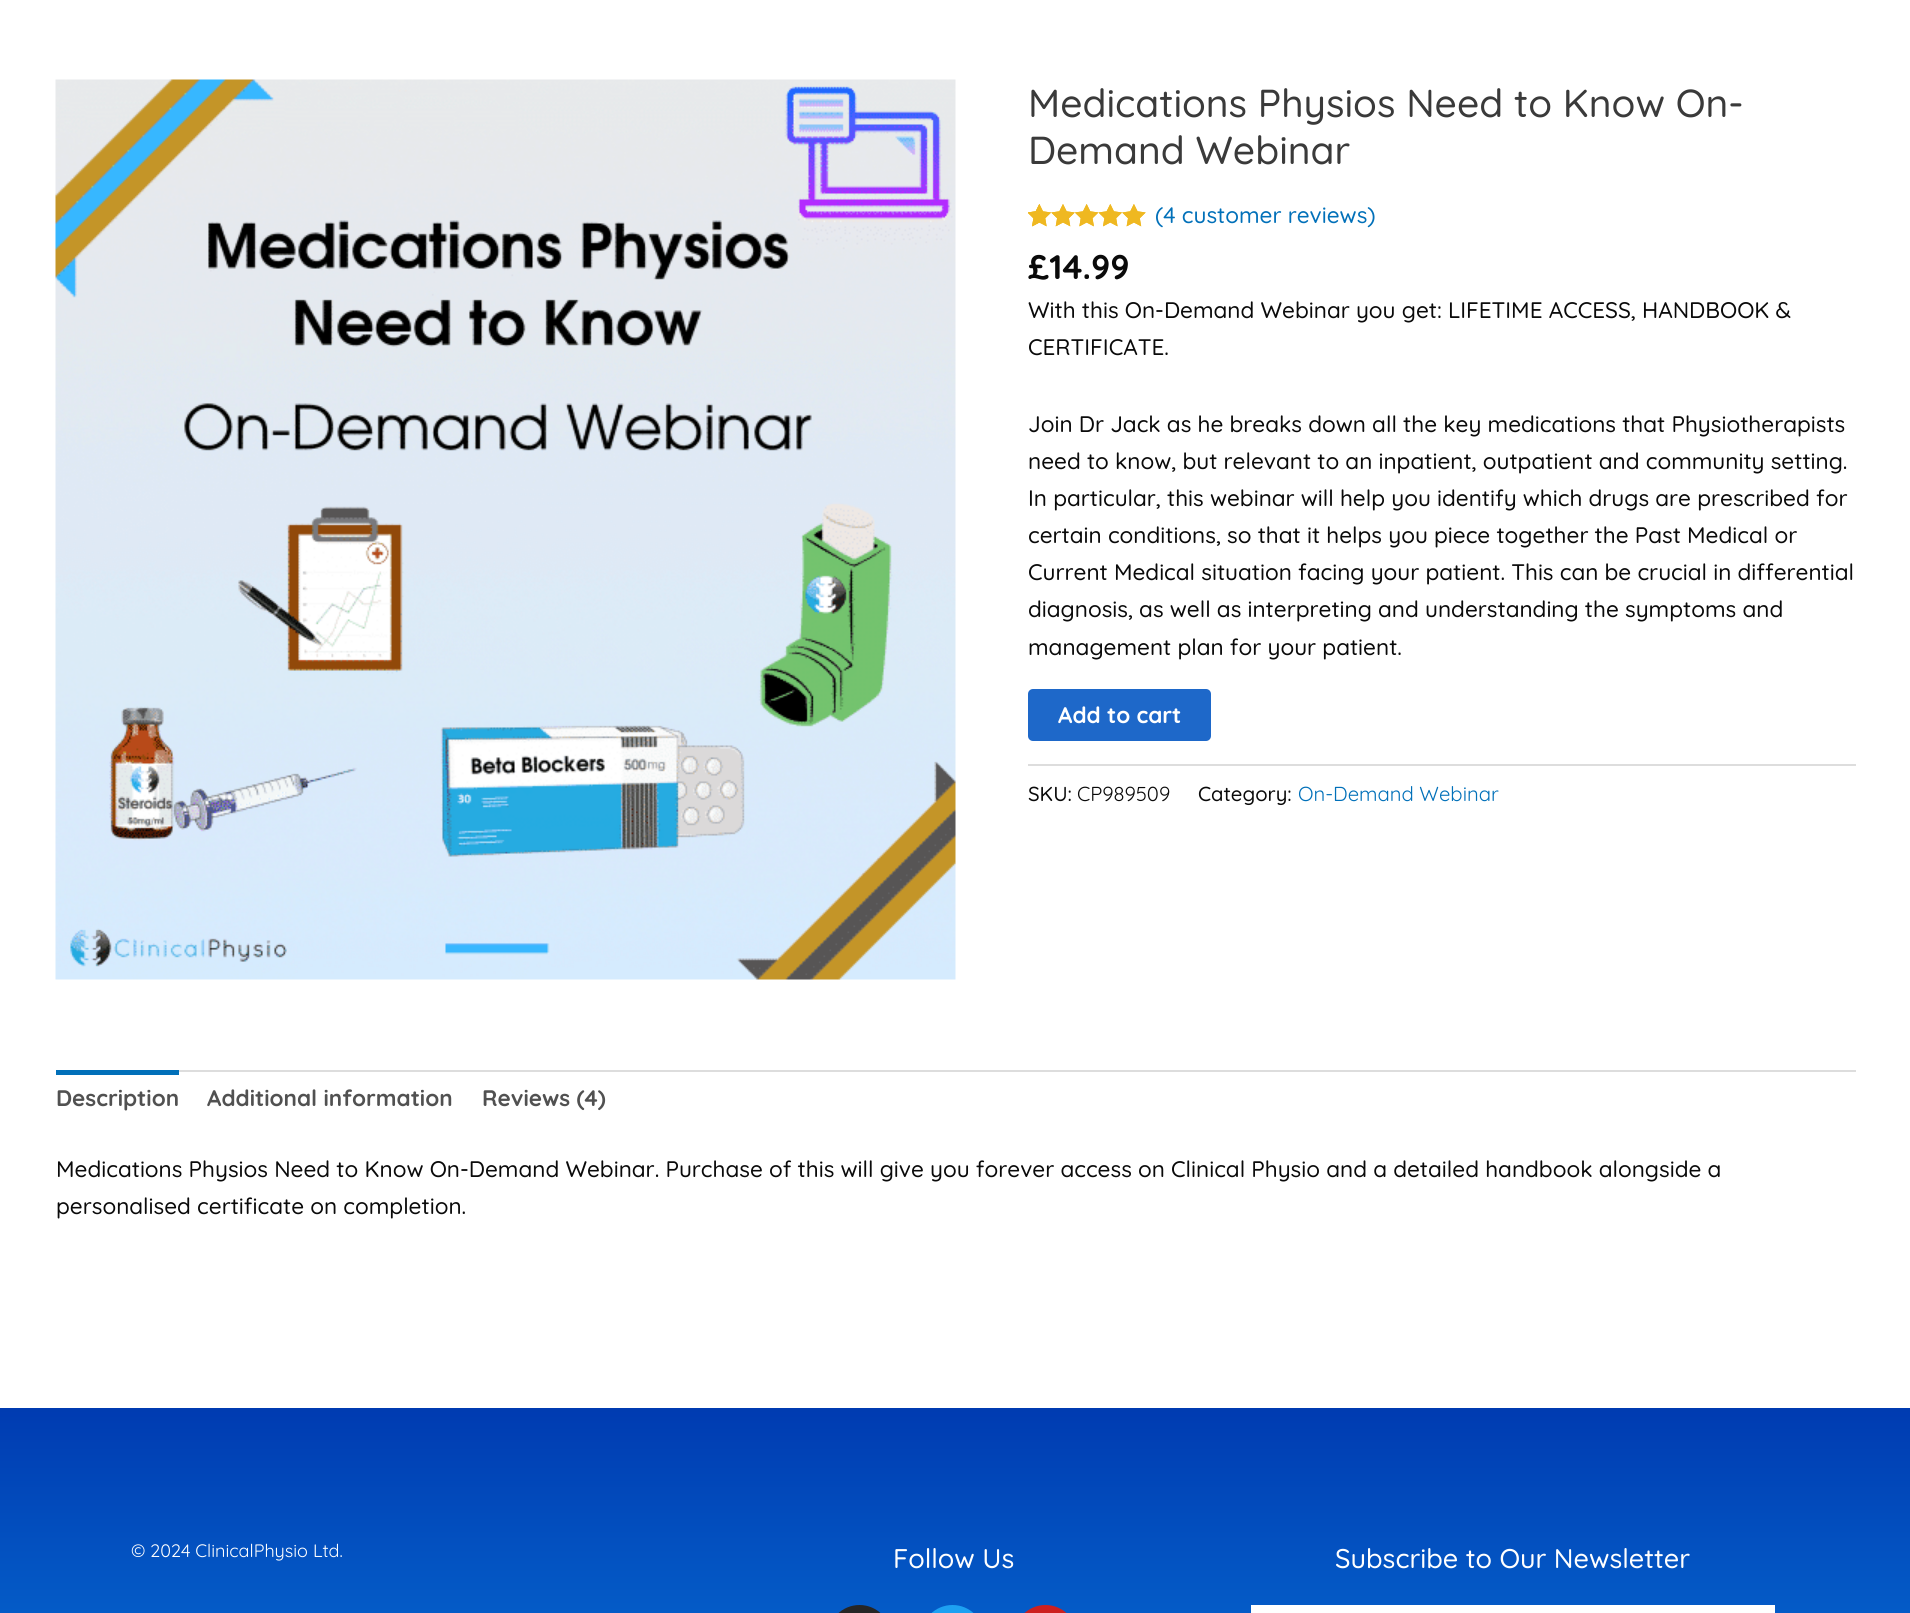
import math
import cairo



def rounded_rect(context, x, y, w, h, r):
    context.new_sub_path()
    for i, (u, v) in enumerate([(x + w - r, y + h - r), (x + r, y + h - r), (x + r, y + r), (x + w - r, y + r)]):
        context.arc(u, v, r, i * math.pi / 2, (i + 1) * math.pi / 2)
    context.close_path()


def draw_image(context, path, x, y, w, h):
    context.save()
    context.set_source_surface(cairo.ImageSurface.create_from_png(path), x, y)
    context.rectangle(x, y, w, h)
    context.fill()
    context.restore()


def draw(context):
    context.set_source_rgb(1, 1, 1)
    context.paint()
    draw_image(context, "images/1.png", 55, 79, 901, 901)
    draw_image(context, "images/2.png", 1028, 204, 118, 23)
    draw_image(context, "images/3.png", 1028, 204, 118, 23)
    draw_image(context, "images/4.png", 1028, 204, 12, 23)
    context.set_source_rgb(30 / 255, 104 / 255, 201 / 255)
    rounded_rect(context, 1028, 689, 183, 52, 5)
    context.fill()
    context.set_source_rgb(221 / 255, 221 / 255, 221 / 255)
    context.rectangle(1028, 764, 828, 2)
    context.fill()
    context.rectangle(179, 1070, 1677, 2)
    context.fill()
    context.set_source_rgb(1 / 255, 112 / 255, 185 / 255)
    context.rectangle(56, 1070, 123, 5)
    context.fill()
    gradient = cairo.LinearGradient(956, 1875, 956, 1407)
    gradient.add_color_stop_rgba(0, 9 / 255, 132 / 255, 227 / 255, 1)
    gradient.add_color_stop_rgba(1, 0, 59 / 255, 177 / 255, 1)
    context.set_source(gradient)
    context.rectangle(0, 1408, 1910, 205)
    context.fill()
    context.set_source_rgb(38 / 255, 38 / 255, 38 / 255)
    rounded_rect(context, 828, 1605, 63, 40, 31.5)
    context.fill()
    context.set_source_rgb(29 / 255, 161 / 255, 242 / 255)
    rounded_rect(context, 921, 1605, 63, 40, 31.5)
    context.fill()
    context.set_source_rgb(205 / 255, 32 / 255, 31 / 255)
    rounded_rect(context, 1014, 1605, 63, 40, 31.5)
    context.fill()
    context.set_source_rgb(1, 1, 1)
    context.rectangle(1251, 1605, 524, 8)
    context.fill()
    context.select_font_face("Quicksand Medium")
    context.set_font_size(39)
    context.set_source_rgb(58 / 255, 58 / 255, 58 / 255)
    context.move_to(1028, 117)
    context.show_text("Medications Physios Need to Know On-")
    context.move_to(1028, 164)
    context.show_text("Demand Webinar")
    context.set_font_size(22.5)
    context.set_source_rgb(1 / 255, 112 / 255, 185 / 255)
    context.move_to(1155, 223)
    context.show_text("(4 customer reviews)")
    context.select_font_face("Quicksand", cairo.FontSlant.NORMAL, cairo.FontWeight.BOLD)
    context.set_font_size(34)
    context.set_source_rgb(10 / 255, 10 / 255, 10 / 255)
    context.move_to(1028, 279)
    context.show_text("£14.99")
    context.select_font_face("Quicksand Medium")
    context.set_font_size(22.5)
    context.move_to(1028, 318)
    context.show_text("With this On-Demand Webinar you get: LIFETIME ACCESS, HANDBOOK &")
    context.move_to(1028, 355)
    context.show_text("CERTIFICATE.")
    context.move_to(1028, 432)
    context.show_text("Join Dr Jack as he breaks down all the key medications that Physiotherapists")
    context.move_to(1028, 469)
    context.show_text("need to know, but relevant to an inpatient, outpatient and community setting.")
    context.move_to(1028, 506)
    context.show_text("In particular, this webinar will help you identify which drugs are prescribed for")
    context.move_to(1028, 543)
    context.show_text("certain conditions, so that it helps you piece together the Past Medical or")
    context.move_to(1028, 580)
    context.show_text("Current Medical situation facing your patient. This can be crucial in differential")
    context.move_to(1028, 617)
    context.show_text("diagnosis, as well as interpreting and understanding the symptoms and")
    context.move_to(1028, 655)
    context.show_text("management plan for your patient.")
    context.select_font_face("Quicksand", cairo.FontSlant.NORMAL, cairo.FontWeight.BOLD)
    context.set_source_rgb(1, 1, 1)
    context.move_to(1058, 723)
    context.show_text("Add to cart")
    context.select_font_face("Quicksand Medium")
    context.set_font_size(20.25)
    context.set_source_rgb(10 / 255, 10 / 255, 10 / 255)
    context.move_to(1028, 801)
    context.show_text("SKU:")
    context.select_font_face("Quicksand")
    context.move_to(1077, 801)
    context.show_text("CP989509")
    context.select_font_face("Quicksand Medium")
    context.move_to(1198, 801)
    context.show_text("Category:")
    context.select_font_face("Quicksand")
    context.set_source_rgb(1 / 255, 112 / 255, 185 / 255)
    context.move_to(1298, 801)
    context.show_text("On-Demand Webinar")
    context.select_font_face("Quicksand", cairo.FontSlant.NORMAL, cairo.FontWeight.BOLD)
    context.set_font_size(22.5)
    context.set_source_rgb(81 / 255, 81 / 255, 81 / 255)
    context.move_to(56, 1106)
    context.show_text("Description")
    context.move_to(207, 1106)
    context.show_text("Additional information")
    context.move_to(482, 1106)
    context.show_text("Reviews (4)")
    context.select_font_face("Quicksand Medium")
    context.set_source_rgb(10 / 255, 10 / 255, 10 / 255)
    context.move_to(56, 1177)
    context.show_text("Medications Physios Need to Know On-Demand Webinar. Purchase of this will give you forever access on Clinical Physio and a detailed handbook alongside a")
    context.move_to(56, 1214)
    context.show_text("personalised certificate on completion.")
    context.select_font_face("Quicksand")
    context.set_font_size(18)
    context.set_source_rgb(1, 1, 1)
    context.move_to(131, 1557)
    context.show_text("© 2024 ClinicalPhysio Ltd.")
    context.select_font_face("Quicksand Medium")
    context.set_font_size(27)
    context.move_to(893, 1568)
    context.show_text("Follow Us")
    context.move_to(1335, 1568)
    context.show_text("Subscribe to Our Newsletter")


surface = cairo.ImageSurface(cairo.Format.RGB24, 1910, 1613)
context = cairo.Context(surface)
options = cairo.FontOptions()
options.set_hint_metrics(cairo.HintMetrics.OFF)
options.set_hint_style(cairo.HintStyle.NONE)
context.set_font_options(options)
context.set_miter_limit(4)
draw(context)
surface.write_to_png("out.png")
